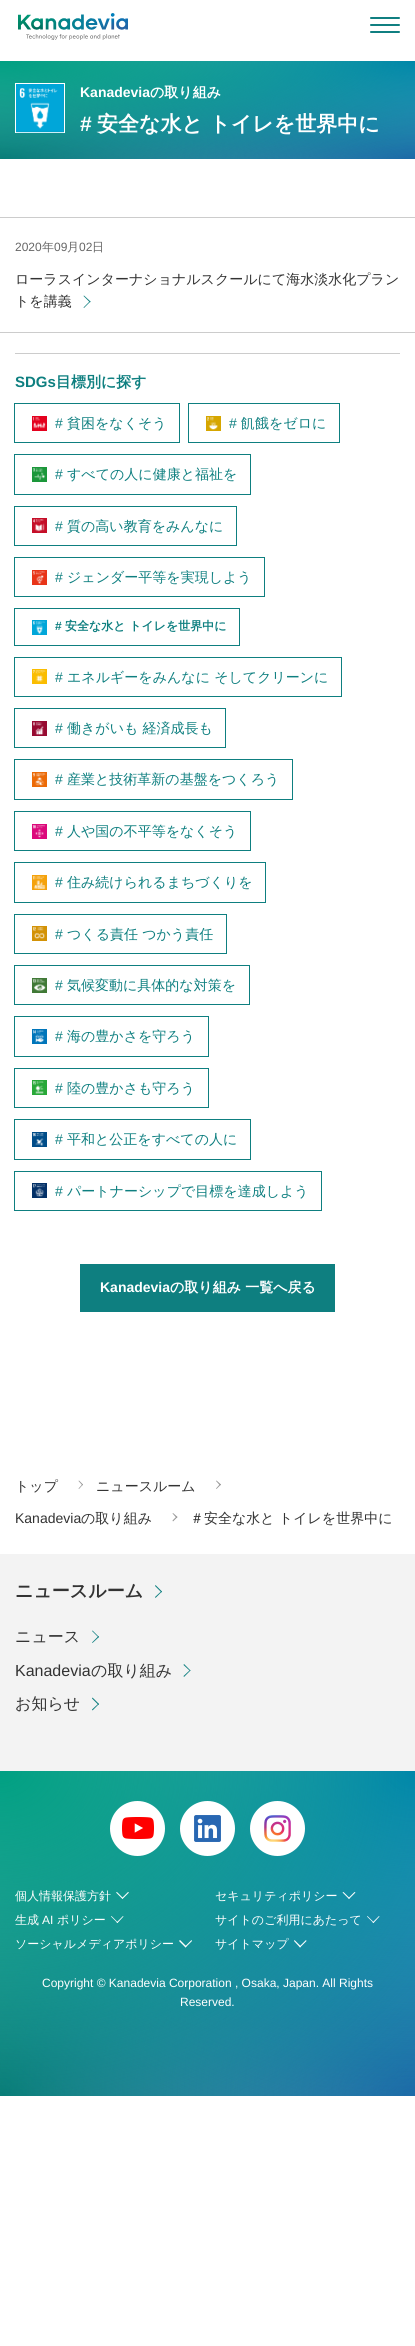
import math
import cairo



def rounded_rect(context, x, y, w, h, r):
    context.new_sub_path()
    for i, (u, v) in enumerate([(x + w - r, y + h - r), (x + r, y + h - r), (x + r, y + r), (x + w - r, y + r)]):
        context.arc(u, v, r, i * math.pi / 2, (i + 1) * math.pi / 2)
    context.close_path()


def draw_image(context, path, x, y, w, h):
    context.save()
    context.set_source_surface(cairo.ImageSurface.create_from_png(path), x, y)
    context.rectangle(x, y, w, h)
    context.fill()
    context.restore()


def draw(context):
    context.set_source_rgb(1, 1, 1)
    context.paint()
    draw_image(context, "images/1.png", 18, 13, 110, 27)
    context.set_source_rgb(16 / 255, 127 / 255, 129 / 255)
    rounded_rect(context, 370, 17, 30, 2, 1)
    context.fill()
    rounded_rect(context, 370, 24, 30, 2, 1)
    context.fill()
    rounded_rect(context, 370, 31, 30, 2, 1)
    context.fill()
    gradient = cairo.RadialGradient(0, 0, 0, 0, 0, 1)
    gradient.set_matrix(cairo.Matrix(1 / 587, 0, 0, 1 / 139, -1 * 0 / 587, -1 * 159 / 139))
    gradient.add_color_stop_rgba(0, 0, 115 / 255, 96 / 255, 1)
    gradient.add_color_stop_rgba(1, 1, 1, 1, 1)
    context.set_source(gradient)
    context.rectangle(0, 61, 415, 98)
    context.fill()
    gradient = cairo.RadialGradient(0, 0, 0, 0, 0, 1)
    gradient.set_matrix(cairo.Matrix(1 / 587, 0, 0, 1 / 139, -1 * 415 / 587, -1 * 159 / 139))
    gradient.add_color_stop_rgba(0, 40 / 255, 98 / 255, 160 / 255, 1)
    gradient.add_color_stop_rgba(1, 40 / 255, 98 / 255, 160 / 255, 0)
    context.set_source(gradient)
    context.rectangle(0, 61, 415, 98)
    context.fill()
    gradient = cairo.RadialGradient(0, 0, 0, 0, 0, 1)
    gradient.set_matrix(cairo.Matrix(1 / 587, 0, 0, 1 / 139, -1 * 415 / 587, -1 * 61 / 139))
    gradient.add_color_stop_rgba(0, 0, 125 / 255, 185 / 255, 1)
    gradient.add_color_stop_rgba(1, 0, 125 / 255, 185 / 255, 0)
    context.set_source(gradient)
    context.rectangle(0, 61, 415, 98)
    context.fill()
    gradient = cairo.RadialGradient(0, 0, 0, 0, 0, 1)
    gradient.set_matrix(cairo.Matrix(1 / 587, 0, 0, 1 / 139, -1 * 0 / 587, -1 * 61 / 139))
    gradient.add_color_stop_rgba(0, 0, 160 / 255, 130 / 255, 1)
    gradient.add_color_stop_rgba(1, 0, 160 / 255, 130 / 255, 0)
    context.set_source(gradient)
    context.rectangle(0, 61, 415, 98)
    context.fill()
    context.rectangle(15.5, 83.5, 49, 49)
    context.set_source_rgb(1, 1, 1)
    context.set_line_width(1)
    context.stroke()
    draw_image(context, "images/2.png", 16, 84, 48, 49)
    context.set_source_rgb(204 / 255, 204 / 255, 204 / 255)
    context.rectangle(0, 217, 415, 1)
    context.fill()
    context.rectangle(0, 332, 415, 1)
    context.fill()
    context.set_source_rgb(14 / 255, 127 / 255, 128 / 255)
    context.new_path()
    context.move_to(84, 295.5)
    context.line_to(90.5, 301.5)
    context.line_to(90, 302.5)
    context.line_to(83.5, 296)
    context.close_path()
    context.fill()
    context.new_path()
    context.move_to(90, 301)
    context.line_to(90.5, 301.5)
    context.line_to(84, 308)
    context.line_to(83.5, 307.5)
    context.close_path()
    context.fill()
    context.set_source_rgb(204 / 255, 204 / 255, 204 / 255)
    context.rectangle(15, 353, 385, 1)
    context.fill()
    context.rectangle(14.5, 403.5, 165, 39)
    context.set_source_rgb(14 / 255, 127 / 255, 128 / 255)
    context.stroke()
    draw_image(context, "images/3.png", 32, 416, 15, 15)
    context.rectangle(188.5, 403.5, 151, 39)
    context.stroke()
    draw_image(context, "images/4.png", 206, 416, 15, 15)
    context.rectangle(14.5, 454.5, 236, 40)
    context.stroke()
    draw_image(context, "images/5.png", 32, 467, 15, 15)
    context.rectangle(14.5, 506.5, 222, 39)
    context.stroke()
    draw_image(context, "images/6.png", 32, 518, 15, 15)
    context.rectangle(14.5, 557.5, 250, 39)
    context.stroke()
    draw_image(context, "images/7.png", 32, 570, 15, 15)
    context.rectangle(14.5, 608.5, 225, 37)
    context.stroke()
    draw_image(context, "images/8.png", 32, 620, 15, 15)
    context.rectangle(14.5, 657.5, 327, 39)
    context.stroke()
    draw_image(context, "images/9.png", 32, 669, 15, 15)
    context.rectangle(14.5, 708.5, 211, 39)
    context.stroke()
    draw_image(context, "images/10.png", 32, 721, 15, 15)
    context.rectangle(14.5, 759.5, 278, 40)
    context.stroke()
    draw_image(context, "images/11.png", 32, 772, 15, 15)
    context.rectangle(14.5, 811.5, 236, 39)
    context.stroke()
    draw_image(context, "images/12.png", 32, 824, 15, 15)
    context.rectangle(14.5, 862.5, 251, 40)
    context.stroke()
    draw_image(context, "images/13.png", 32, 875, 15, 15)
    context.rectangle(14.5, 914.5, 212, 39)
    context.stroke()
    draw_image(context, "images/14.png", 32, 926, 15, 15)
    context.rectangle(14.5, 965.5, 235, 39)
    context.stroke()
    draw_image(context, "images/15.png", 32, 978, 15, 15)
    context.rectangle(14.5, 1016.5, 194, 40)
    context.stroke()
    draw_image(context, "images/16.png", 32, 1029, 15, 15)
    context.rectangle(14.5, 1068.5, 194, 39)
    context.stroke()
    draw_image(context, "images/17.png", 32, 1080, 15, 15)
    context.rectangle(14.5, 1119.5, 236, 40)
    context.stroke()
    draw_image(context, "images/18.png", 32, 1132, 15, 15)
    context.rectangle(14.5, 1171.5, 307, 39)
    context.stroke()
    draw_image(context, "images/19.png", 32, 1183, 15, 15)
    context.rectangle(80, 1264, 255, 48)
    context.fill()
    context.set_source_rgb(152 / 255, 152 / 255, 152 / 255)
    context.new_path()
    context.move_to(79, 1480.5)
    context.line_to(83, 1484.5)
    context.line_to(82.5, 1485.5)
    context.line_to(78.5, 1481)
    context.close_path()
    context.fill()
    context.new_path()
    context.move_to(82.5, 1484)
    context.line_to(83, 1484.5)
    context.line_to(79, 1489)
    context.line_to(78.5, 1488.5)
    context.close_path()
    context.fill()
    context.new_path()
    context.move_to(216.5, 1480.5)
    context.line_to(221, 1484.5)
    context.line_to(220, 1485.5)
    context.line_to(216, 1481)
    context.close_path()
    context.fill()
    context.new_path()
    context.move_to(220, 1484)
    context.line_to(221, 1484.5)
    context.line_to(216.5, 1489)
    context.line_to(216, 1488.5)
    context.close_path()
    context.fill()
    context.new_path()
    context.move_to(173, 1513)
    context.line_to(177.5, 1517)
    context.line_to(176.5, 1518)
    context.line_to(172.5, 1513.5)
    context.close_path()
    context.fill()
    context.new_path()
    context.move_to(176.5, 1516.5)
    context.line_to(177.5, 1517)
    context.line_to(173, 1521.5)
    context.line_to(172.5, 1520.5)
    context.close_path()
    context.fill()
    context.set_source_rgb(243 / 255, 243 / 255, 243 / 255)
    context.rectangle(0, 1554, 415, 217)
    context.fill()
    context.set_source_rgb(14 / 255, 127 / 255, 128 / 255)
    context.new_path()
    context.move_to(155.5, 1585)
    context.line_to(162, 1591.5)
    context.line_to(161.5, 1592.5)
    context.line_to(155, 1586)
    context.close_path()
    context.fill()
    context.new_path()
    context.move_to(161.5, 1591)
    context.line_to(162, 1591.5)
    context.line_to(155.5, 1598)
    context.line_to(155, 1597)
    context.close_path()
    context.fill()
    context.new_path()
    context.move_to(92.5, 1630.5)
    context.line_to(99, 1637)
    context.line_to(98.5, 1637.5)
    context.line_to(92, 1631)
    context.close_path()
    context.fill()
    context.new_path()
    context.move_to(98.5, 1636)
    context.line_to(99, 1637)
    context.line_to(92.5, 1643)
    context.line_to(92, 1642.5)
    context.close_path()
    context.fill()
    context.new_path()
    context.move_to(184, 1664)
    context.line_to(190.5, 1670.5)
    context.line_to(190, 1671)
    context.line_to(183.5, 1665)
    context.close_path()
    context.fill()
    context.new_path()
    context.move_to(190, 1670)
    context.line_to(190.5, 1670.5)
    context.line_to(184, 1677)
    context.line_to(183.5, 1676)
    context.close_path()
    context.fill()
    context.new_path()
    context.move_to(92.5, 1697.5)
    context.line_to(99, 1704)
    context.line_to(98.5, 1705)
    context.line_to(92, 1698.5)
    context.close_path()
    context.fill()
    context.new_path()
    context.move_to(98.5, 1703.5)
    context.line_to(99, 1704)
    context.line_to(92.5, 1710.5)
    context.line_to(92, 1709.5)
    context.close_path()
    context.fill()
    gradient = cairo.RadialGradient(0, 0, 0, 0, 0, 1)
    gradient.set_matrix(cairo.Matrix(1 / 587, 0, 0, 1 / 460, -1 * 0 / 587, -1 * 2096 / 460))
    gradient.add_color_stop_rgba(0, 0, 115 / 255, 96 / 255, 1)
    gradient.add_color_stop_rgba(1, 1, 1, 1, 1)
    context.set_source(gradient)
    context.rectangle(0, 1771, 415, 325)
    context.fill()
    gradient = cairo.RadialGradient(0, 0, 0, 0, 0, 1)
    gradient.set_matrix(cairo.Matrix(1 / 587, 0, 0, 1 / 460, -1 * 415 / 587, -1 * 2096 / 460))
    gradient.add_color_stop_rgba(0, 40 / 255, 98 / 255, 160 / 255, 1)
    gradient.add_color_stop_rgba(1, 40 / 255, 98 / 255, 160 / 255, 0)
    context.set_source(gradient)
    context.rectangle(0, 1771, 415, 325)
    context.fill()
    gradient = cairo.RadialGradient(0, 0, 0, 0, 0, 1)
    gradient.set_matrix(cairo.Matrix(1 / 587, 0, 0, 1 / 460, -1 * 415 / 587, -1 * 1771 / 460))
    gradient.add_color_stop_rgba(0, 0, 125 / 255, 185 / 255, 1)
    gradient.add_color_stop_rgba(1, 0, 125 / 255, 185 / 255, 0)
    context.set_source(gradient)
    context.rectangle(0, 1771, 415, 325)
    context.fill()
    gradient = cairo.RadialGradient(0, 0, 0, 0, 0, 1)
    gradient.set_matrix(cairo.Matrix(1 / 587, 0, 0, 1 / 460, -1 * 0 / 587, -1 * 1771 / 460))
    gradient.add_color_stop_rgba(0, 0, 160 / 255, 130 / 255, 1)
    gradient.add_color_stop_rgba(1, 0, 160 / 255, 130 / 255, 0)
    context.set_source(gradient)
    context.rectangle(0, 1771, 415, 325)
    context.fill()
    context.set_source_rgb(1, 1, 1)
    context.arc(137.5, 1828.5, 27.5, 0, 2 * math.pi)
    context.fill()
    draw_image(context, "images/20.png", 122, 1817, 32, 22)
    context.arc(207.5, 1828.5, 27.5, 0, 2 * math.pi)
    context.fill()
    draw_image(context, "images/21.png", 194, 1815, 27, 27)
    context.arc(277.5, 1828.5, 27.5, 0, 2 * math.pi)
    context.fill()
    draw_image(context, "images/22.png", 264, 1815, 27, 27)
    context.new_path()
    context.move_to(129, 1892.5)
    context.line_to(122.5, 1899)
    context.line_to(122, 1898)
    context.line_to(128, 1892)
    context.close_path()
    context.fill()
    context.new_path()
    context.move_to(123, 1898)
    context.line_to(122.5, 1899)
    context.line_to(116, 1892.5)
    context.line_to(117, 1892)
    context.close_path()
    context.fill()
    context.new_path()
    context.move_to(355.5, 1892.5)
    context.line_to(349, 1899)
    context.line_to(348.5, 1898)
    context.line_to(354.5, 1892)
    context.close_path()
    context.fill()
    context.new_path()
    context.move_to(349.5, 1898)
    context.line_to(349, 1899)
    context.line_to(342.5, 1892.5)
    context.line_to(343.5, 1892)
    context.close_path()
    context.fill()
    context.new_path()
    context.move_to(123.5, 1916.5)
    context.line_to(117.5, 1923)
    context.line_to(116.5, 1922.5)
    context.line_to(123, 1916)
    context.close_path()
    context.fill()
    context.new_path()
    context.move_to(118, 1922.5)
    context.line_to(117.5, 1923)
    context.line_to(111, 1916.5)
    context.line_to(111.5, 1916)
    context.close_path()
    context.fill()
    context.new_path()
    context.move_to(379.5, 1916.5)
    context.line_to(373.5, 1923)
    context.line_to(372.5, 1922.5)
    context.line_to(379, 1916)
    context.close_path()
    context.fill()
    context.new_path()
    context.move_to(374, 1922.5)
    context.line_to(373.5, 1923)
    context.line_to(367, 1916.5)
    context.line_to(367.5, 1916)
    context.close_path()
    context.fill()
    context.new_path()
    context.move_to(192, 1941)
    context.line_to(185.5, 1947.5)
    context.line_to(185, 1946.5)
    context.line_to(191.5, 1940)
    context.close_path()
    context.fill()
    context.new_path()
    context.move_to(186.5, 1946.5)
    context.line_to(185.5, 1947.5)
    context.line_to(179, 1941)
    context.line_to(180, 1940)
    context.close_path()
    context.fill()
    context.new_path()
    context.move_to(306.5, 1941)
    context.line_to(300, 1947.5)
    context.line_to(299.5, 1946.5)
    context.line_to(306, 1940)
    context.close_path()
    context.fill()
    context.new_path()
    context.move_to(301, 1946.5)
    context.line_to(300, 1947.5)
    context.line_to(294, 1941)
    context.line_to(294.5, 1940)
    context.close_path()
    context.fill()
    context.select_font_face("Liberation Sans", cairo.FontSlant.NORMAL, cairo.FontWeight.BOLD)
    context.set_font_size(14)
    context.move_to(80, 97)
    context.show_text("Kanadevia")
    context.select_font_face("WenQuanYi Zen Hei", cairo.FontSlant.NORMAL, cairo.FontWeight.BOLD)
    context.move_to(150, 97)
    context.show_text("の取り組み")
    context.select_font_face("Liberation Sans", cairo.FontSlant.NORMAL, cairo.FontWeight.BOLD)
    context.set_font_size(21)
    context.move_to(80, 131)
    context.show_text("#")
    context.select_font_face("WenQuanYi Zen Hei", cairo.FontSlant.NORMAL, cairo.FontWeight.BOLD)
    context.move_to(97, 131)
    context.show_text("安全な水と トイレを世界中に")
    context.select_font_face("Liberation Sans")
    context.set_font_size(12)
    context.set_source_rgb(102 / 255, 102 / 255, 102 / 255)
    context.move_to(15, 251)
    context.show_text("2020")
    context.select_font_face("WenQuanYi Zen Hei Medium")
    context.move_to(42, 251)
    context.show_text("年")
    context.select_font_face("Liberation Sans")
    context.move_to(54, 251)
    context.show_text("09")
    context.select_font_face("WenQuanYi Zen Hei Medium")
    context.move_to(67, 251)
    context.show_text("月")
    context.select_font_face("Liberation Sans")
    context.move_to(79, 251)
    context.show_text("02")
    context.select_font_face("WenQuanYi Zen Hei Medium")
    context.move_to(92, 251)
    context.show_text("日")
    context.set_font_size(14)
    context.set_source_rgb(51 / 255, 51 / 255, 51 / 255)
    context.move_to(15, 284)
    context.show_text("ローラスインターナショナルスクールにて海水淡水化プラン")
    context.move_to(15, 306)
    context.show_text("トを講義")
    context.select_font_face("Liberation Sans", cairo.FontSlant.NORMAL, cairo.FontWeight.BOLD)
    context.set_font_size(15)
    context.set_source_rgb(14 / 255, 127 / 255, 128 / 255)
    context.move_to(15, 387)
    context.show_text("SDGs")
    context.select_font_face("WenQuanYi Zen Hei", cairo.FontSlant.NORMAL, cairo.FontWeight.BOLD)
    context.move_to(56, 387)
    context.show_text("目標別に探す")
    context.select_font_face("Liberation Sans")
    context.set_font_size(14)
    context.move_to(55, 428)
    context.show_text("#")
    context.select_font_face("WenQuanYi Zen Hei Medium")
    context.move_to(67, 428)
    context.show_text("貧困をなくそう")
    context.select_font_face("Liberation Sans")
    context.move_to(229, 428)
    context.show_text("#")
    context.select_font_face("WenQuanYi Zen Hei Medium")
    context.move_to(241, 428)
    context.show_text("飢餓をゼロに")
    context.select_font_face("Liberation Sans")
    context.move_to(55, 479)
    context.show_text("#")
    context.select_font_face("WenQuanYi Zen Hei Medium")
    context.move_to(67, 479)
    context.show_text("すべての人に健康と福祉を")
    context.select_font_face("Liberation Sans")
    context.move_to(55, 531)
    context.show_text("#")
    context.select_font_face("WenQuanYi Zen Hei Medium")
    context.move_to(67, 531)
    context.show_text("質の高い教育をみんなに")
    context.select_font_face("Liberation Sans")
    context.move_to(55, 582)
    context.show_text("#")
    context.select_font_face("WenQuanYi Zen Hei Medium")
    context.move_to(67, 582)
    context.show_text("ジェンダー平等を実現しよう")
    context.select_font_face("Liberation Sans", cairo.FontSlant.NORMAL, cairo.FontWeight.BOLD)
    context.set_font_size(12)
    context.move_to(55, 630)
    context.show_text("#")
    context.select_font_face("WenQuanYi Zen Hei", cairo.FontSlant.NORMAL, cairo.FontWeight.BOLD)
    context.move_to(65, 630)
    context.show_text("安全な水と トイレを世界中に")
    context.select_font_face("Liberation Sans")
    context.set_font_size(14)
    context.move_to(55, 682)
    context.show_text("#")
    context.select_font_face("WenQuanYi Zen Hei Medium")
    context.move_to(67, 682)
    context.show_text("エネルギーをみんなに そしてクリーンに")
    context.select_font_face("Liberation Sans")
    context.move_to(55, 733)
    context.show_text("#")
    context.select_font_face("WenQuanYi Zen Hei Medium")
    context.move_to(67, 733)
    context.show_text("働きがいも 経済成長も")
    context.select_font_face("Liberation Sans")
    context.move_to(55, 784)
    context.show_text("#")
    context.select_font_face("WenQuanYi Zen Hei Medium")
    context.move_to(67, 784)
    context.show_text("産業と技術革新の基盤をつくろう")
    context.select_font_face("Liberation Sans")
    context.move_to(55, 836)
    context.show_text("#")
    context.select_font_face("WenQuanYi Zen Hei Medium")
    context.move_to(67, 836)
    context.show_text("人や国の不平等をなくそう")
    context.select_font_face("Liberation Sans")
    context.move_to(55, 887)
    context.show_text("#")
    context.select_font_face("WenQuanYi Zen Hei Medium")
    context.move_to(67, 887)
    context.show_text("住み続けられるまちづくりを")
    context.select_font_face("Liberation Sans")
    context.move_to(55, 939)
    context.show_text("#")
    context.select_font_face("WenQuanYi Zen Hei Medium")
    context.move_to(67, 939)
    context.show_text("つくる責任 つかう責任")
    context.select_font_face("Liberation Sans")
    context.move_to(55, 990)
    context.show_text("#")
    context.select_font_face("WenQuanYi Zen Hei Medium")
    context.move_to(67, 990)
    context.show_text("気候変動に具体的な対策を")
    context.select_font_face("Liberation Sans")
    context.move_to(55, 1041)
    context.show_text("#")
    context.select_font_face("WenQuanYi Zen Hei Medium")
    context.move_to(67, 1041)
    context.show_text("海の豊かさを守ろう")
    context.select_font_face("Liberation Sans")
    context.move_to(55, 1093)
    context.show_text("#")
    context.select_font_face("WenQuanYi Zen Hei Medium")
    context.move_to(67, 1093)
    context.show_text("陸の豊かさも守ろう")
    context.select_font_face("Liberation Sans")
    context.move_to(55, 1144)
    context.show_text("#")
    context.select_font_face("WenQuanYi Zen Hei Medium")
    context.move_to(67, 1144)
    context.show_text("平和と公正をすべての人に")
    context.select_font_face("Liberation Sans")
    context.move_to(55, 1196)
    context.show_text("#")
    context.select_font_face("WenQuanYi Zen Hei Medium")
    context.move_to(67, 1196)
    context.show_text("パートナーシップで目標を達成しよう")
    context.select_font_face("Liberation Sans", cairo.FontSlant.NORMAL, cairo.FontWeight.BOLD)
    context.set_source_rgb(1, 1, 1)
    context.move_to(100, 1292)
    context.show_text("Kanadevia")
    context.select_font_face("WenQuanYi Zen Hei", cairo.FontSlant.NORMAL, cairo.FontWeight.BOLD)
    context.move_to(170, 1292)
    context.show_text("の取り組み 一覧へ戻る")
    context.select_font_face("WenQuanYi Zen Hei Medium")
    context.set_source_rgb(51 / 255, 51 / 255, 51 / 255)
    context.move_to(15, 1491)
    context.show_text("トップ")
    context.move_to(96, 1491)
    context.show_text("ニュースルーム")
    context.select_font_face("Liberation Sans")
    context.move_to(15, 1523)
    context.show_text("Kanadevia")
    context.select_font_face("WenQuanYi Zen Hei Medium")
    context.move_to(81, 1523)
    context.show_text("の取り組み")
    context.move_to(190, 1523)
    context.show_text("＃安全な水と トイレを世界中に")
    context.select_font_face("WenQuanYi Zen Hei", cairo.FontSlant.NORMAL, cairo.FontWeight.BOLD)
    context.set_font_size(18)
    context.move_to(15, 1597)
    context.show_text("ニュースルーム")
    context.select_font_face("WenQuanYi Zen Hei Medium")
    context.set_font_size(16)
    context.move_to(15, 1642)
    context.show_text("ニュース")
    context.select_font_face("Liberation Sans")
    context.move_to(15, 1676)
    context.show_text("Kanadevia")
    context.select_font_face("WenQuanYi Zen Hei Medium")
    context.move_to(91, 1676)
    context.show_text("の取り組み")
    context.move_to(15, 1709)
    context.show_text("お知らせ")
    context.set_font_size(12)
    context.set_source_rgb(1, 1, 1)
    context.move_to(15, 1900)
    context.show_text("個人情報保護方針")
    context.move_to(215, 1900)
    context.show_text("セキュリティポリシー")
    context.move_to(15, 1924)
    context.show_text("生成")
    context.select_font_face("Liberation Sans")
    context.move_to(42, 1924)
    context.show_text("AI")
    context.select_font_face("WenQuanYi Zen Hei Medium")
    context.move_to(57, 1924)
    context.show_text("ポリシー")
    context.move_to(215, 1924)
    context.show_text("サイトのご利用にあたって")
    context.move_to(15, 1948)
    context.show_text("ソーシャルメディアポリシー")
    context.move_to(215, 1948)
    context.show_text("サイトマップ")
    context.select_font_face("Liberation Sans")
    context.move_to(42, 1987)
    context.show_text("Copyright © Kanadevia Corporation , Osaka, Japan. All Rights")
    context.move_to(180, 2006)
    context.show_text("Reserved.")


surface = cairo.ImageSurface(cairo.Format.RGB24, 415, 2346)
context = cairo.Context(surface)
options = cairo.FontOptions()
options.set_hint_metrics(cairo.HintMetrics.OFF)
options.set_hint_style(cairo.HintStyle.NONE)
context.set_font_options(options)
context.set_miter_limit(4)
draw(context)
surface.write_to_png("out.png")
